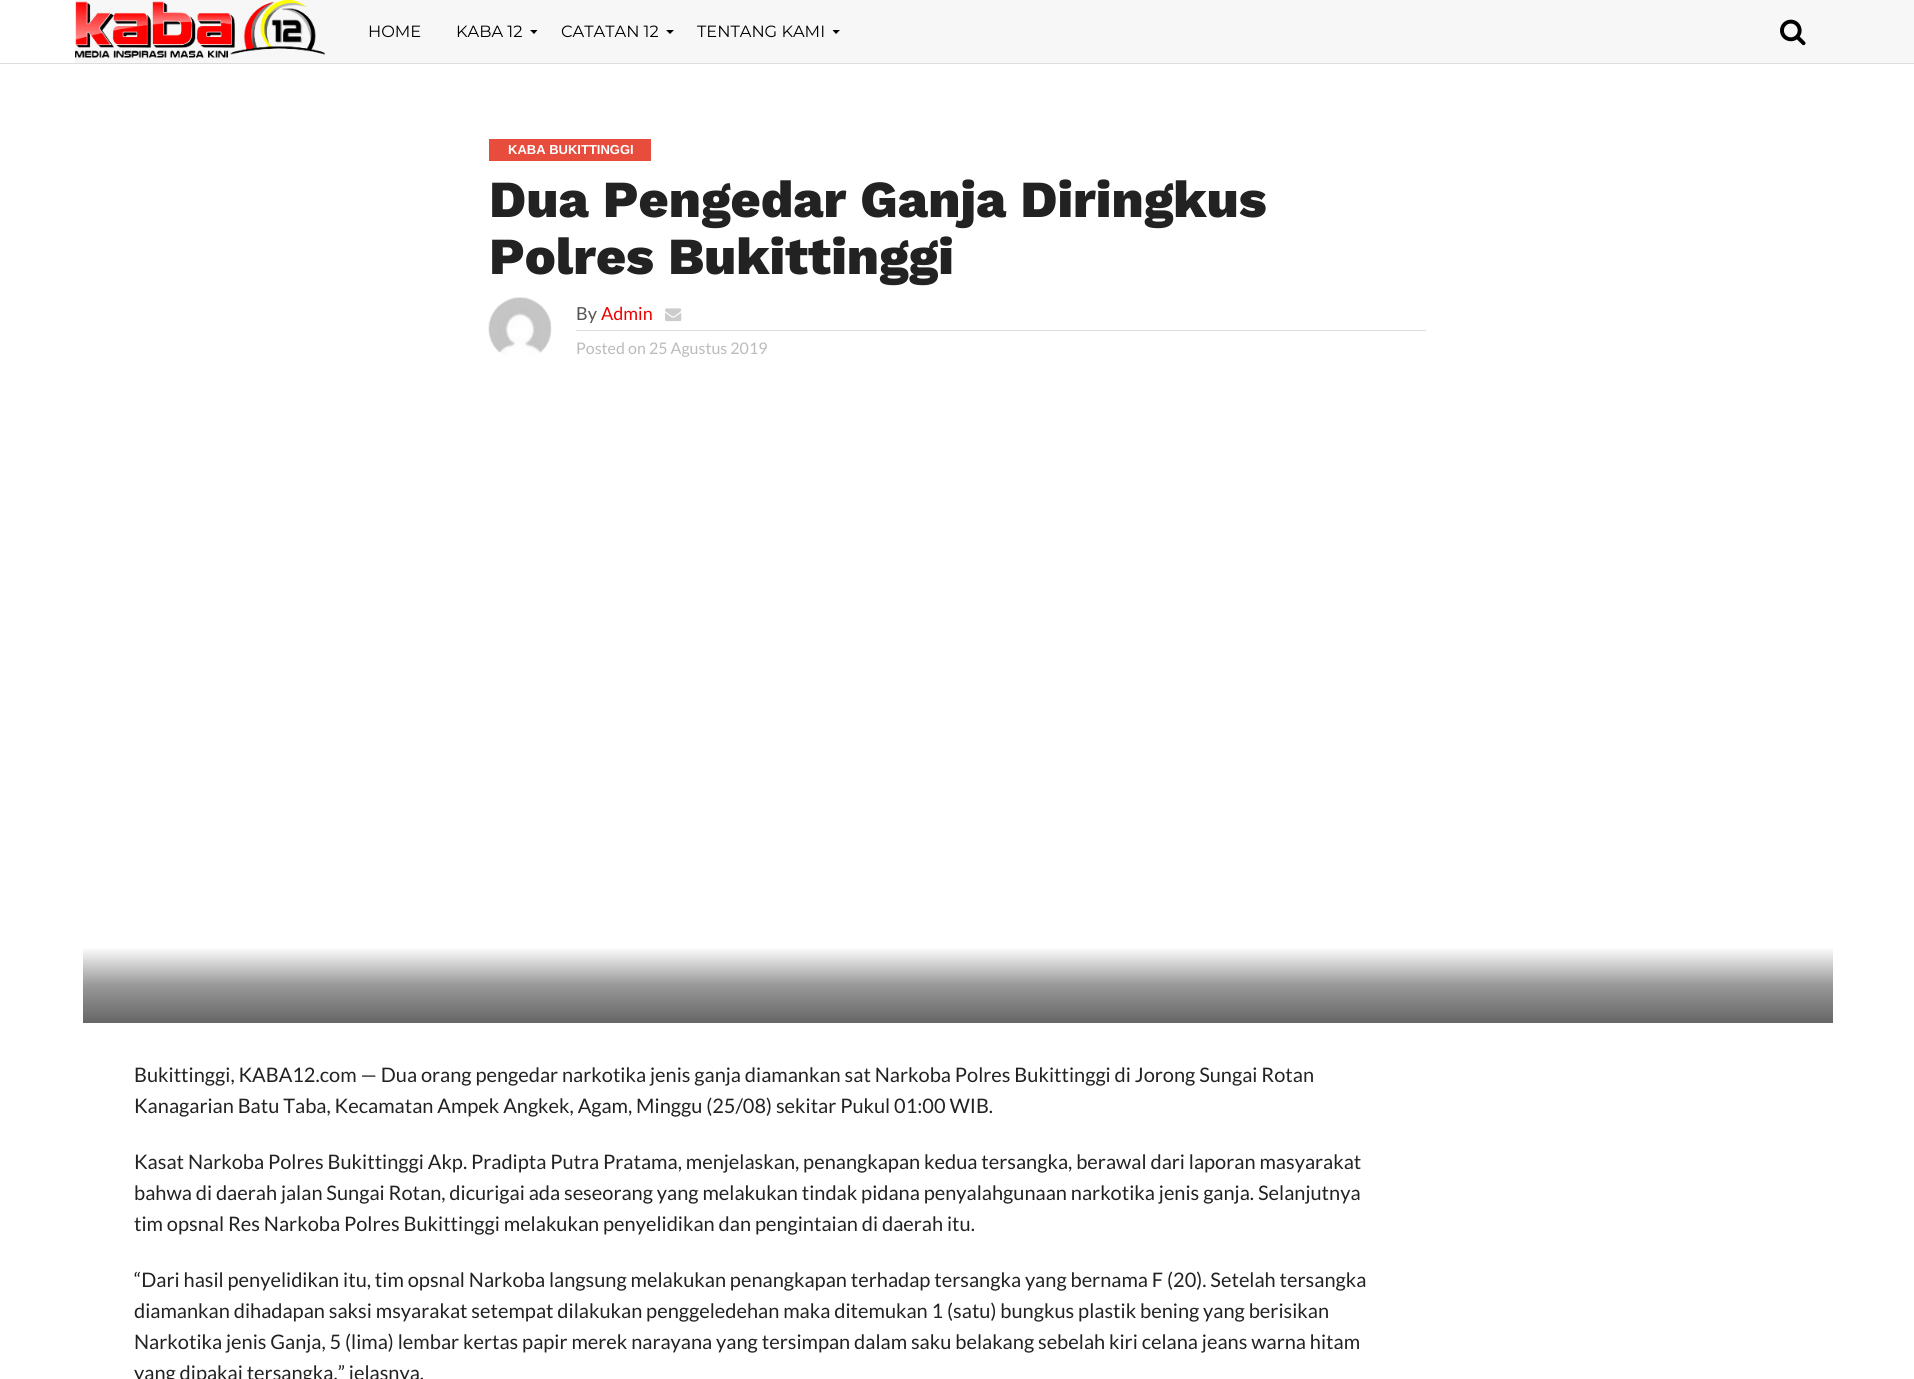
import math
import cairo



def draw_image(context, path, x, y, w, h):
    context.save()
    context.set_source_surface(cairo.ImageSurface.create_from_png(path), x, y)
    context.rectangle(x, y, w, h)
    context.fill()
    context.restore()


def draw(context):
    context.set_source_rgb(1, 1, 1)
    context.paint()
    context.set_source_rgb(247 / 255, 247 / 255, 247 / 255)
    context.rectangle(75, 0, 1839, 63)
    context.fill()
    context.set_source_rgb(221 / 255, 221 / 255, 221 / 255)
    context.rectangle(0, 63, 1914, 1)
    context.fill()
    draw_image(context, "images/1.png", 75, 0, 250, 58)
    context.set_source_rgb(0, 0, 0)
    context.new_path()
    context.move_to(530, 30)
    context.line_to(537.5, 30)
    context.line_to(534, 34)
    context.close_path()
    context.fill()
    context.new_path()
    context.move_to(666, 30)
    context.line_to(674, 30)
    context.line_to(670, 34)
    context.close_path()
    context.fill()
    context.new_path()
    context.move_to(832.5, 30)
    context.line_to(840, 30)
    context.line_to(836, 34)
    context.close_path()
    context.fill()
    draw_image(context, "images/2.png", 1780, 19, 26, 27)
    context.set_source_rgb(231 / 255, 76 / 255, 60 / 255)
    context.rectangle(489, 139, 162, 22)
    context.fill()
    draw_image(context, "images/3.png", 488, 297, 64, 58)
    context.set_source_rgb(221 / 255, 221 / 255, 221 / 255)
    context.rectangle(576, 330, 850, 1)
    context.fill()
    draw_image(context, "images/4.png", 665, 308, 17, 14)
    gradient = cairo.LinearGradient(958, 947, 958, 1023)
    gradient.add_color_stop_rgba(0, 1, 1, 1, 1)
    gradient.add_color_stop_rgba(0.5, 153 / 255, 153 / 255, 153 / 255, 1)
    gradient.add_color_stop_rgba(1, 102 / 255, 102 / 255, 102 / 255, 1)
    context.set_source(gradient)
    context.rectangle(83, 948, 1750, 75)
    context.fill()
    context.select_font_face("Montserrat")
    context.set_font_size(16.25)
    context.set_source_rgb(0, 0, 0)
    context.move_to(368, 37)
    context.show_text("HOME")
    context.move_to(456, 37)
    context.show_text("KABA 12")
    context.move_to(561, 37)
    context.show_text("CATATAN 12")
    context.move_to(697, 37)
    context.show_text("TENTANG KAMI")
    context.select_font_face("Liberation Sans", cairo.FontSlant.NORMAL, cairo.FontWeight.BOLD)
    context.set_font_size(13)
    context.set_source_rgb(1, 1, 1)
    context.move_to(508, 154)
    context.show_text("KABA BUKITTINGGI")
    context.select_font_face("Work Sans ExtraBold")
    context.set_font_size(52)
    context.set_source_rgb(34 / 255, 34 / 255, 34 / 255)
    context.move_to(489, 217)
    context.show_text("Dua Pengedar Ganja Diringkus")
    context.move_to(489, 274)
    context.show_text("Polres Bukittinggi")
    context.select_font_face("Lato")
    context.set_font_size(18)
    context.set_source_rgb(85 / 255, 85 / 255, 85 / 255)
    context.move_to(576, 320)
    context.show_text("By")
    context.set_source_rgb(235 / 255, 3 / 255, 3 / 255)
    context.move_to(601, 320)
    context.show_text("Admin")
    context.set_font_size(16)
    context.set_source_rgb(187 / 255, 187 / 255, 187 / 255)
    context.move_to(576, 354)
    context.show_text("Posted on 25 Agustus 2019")
    context.set_font_size(20)
    context.set_source_rgb(34 / 255, 34 / 255, 34 / 255)
    context.move_to(134, 1082)
    context.show_text("Bukittinggi, KABA12.com — Dua orang pengedar narkotika jenis ganja diamankan sat Narkoba Polres Bukittinggi di Jorong Sungai Rotan")
    context.move_to(134, 1113)
    context.show_text("Kanagarian Batu Taba, Kecamatan Ampek Angkek, Agam, Minggu (25/08) sekitar Pukul 01:00 WIB.")
    context.move_to(134, 1169)
    context.show_text("Kasat Narkoba Polres Bukittinggi Akp. Pradipta Putra Pratama, menjelaskan, penangkapan kedua tersangka, berawal dari laporan masyarakat")
    context.move_to(134, 1200)
    context.show_text("bahwa di daerah jalan Sungai Rotan, dicurigai ada seseorang yang melakukan tindak pidana penyalahgunaan narkotika jenis ganja. Selanjutnya")
    context.move_to(134, 1231)
    context.show_text("tim opsnal Res Narkoba Polres Bukittinggi melakukan penyelidikan dan pengintaian di daerah itu.")
    context.move_to(134, 1287)
    context.show_text("“Dari hasil penyelidikan itu, tim opsnal Narkoba langsung melakukan penangkapan terhadap tersangka yang bernama F (20). Setelah tersangka")
    context.move_to(134, 1318)
    context.show_text("diamankan dihadapan saksi msyarakat setempat dilakukan penggeledehan maka ditemukan 1 (satu) bungkus plastik bening yang berisikan")
    context.move_to(134, 1349)
    context.show_text("Narkotika jenis Ganja, 5 (lima) lembar kertas papir merek narayana yang tersimpan dalam saku belakang sebelah kiri celana jeans warna hitam")
    context.move_to(134, 1380)
    context.show_text("yang dipakai tersangka,” jelasnya.")


surface = cairo.ImageSurface(cairo.Format.RGB24, 1914, 1379)
context = cairo.Context(surface)
options = cairo.FontOptions()
options.set_hint_metrics(cairo.HintMetrics.OFF)
options.set_hint_style(cairo.HintStyle.NONE)
context.set_font_options(options)
context.set_miter_limit(4)
draw(context)
surface.write_to_png("out.png")
